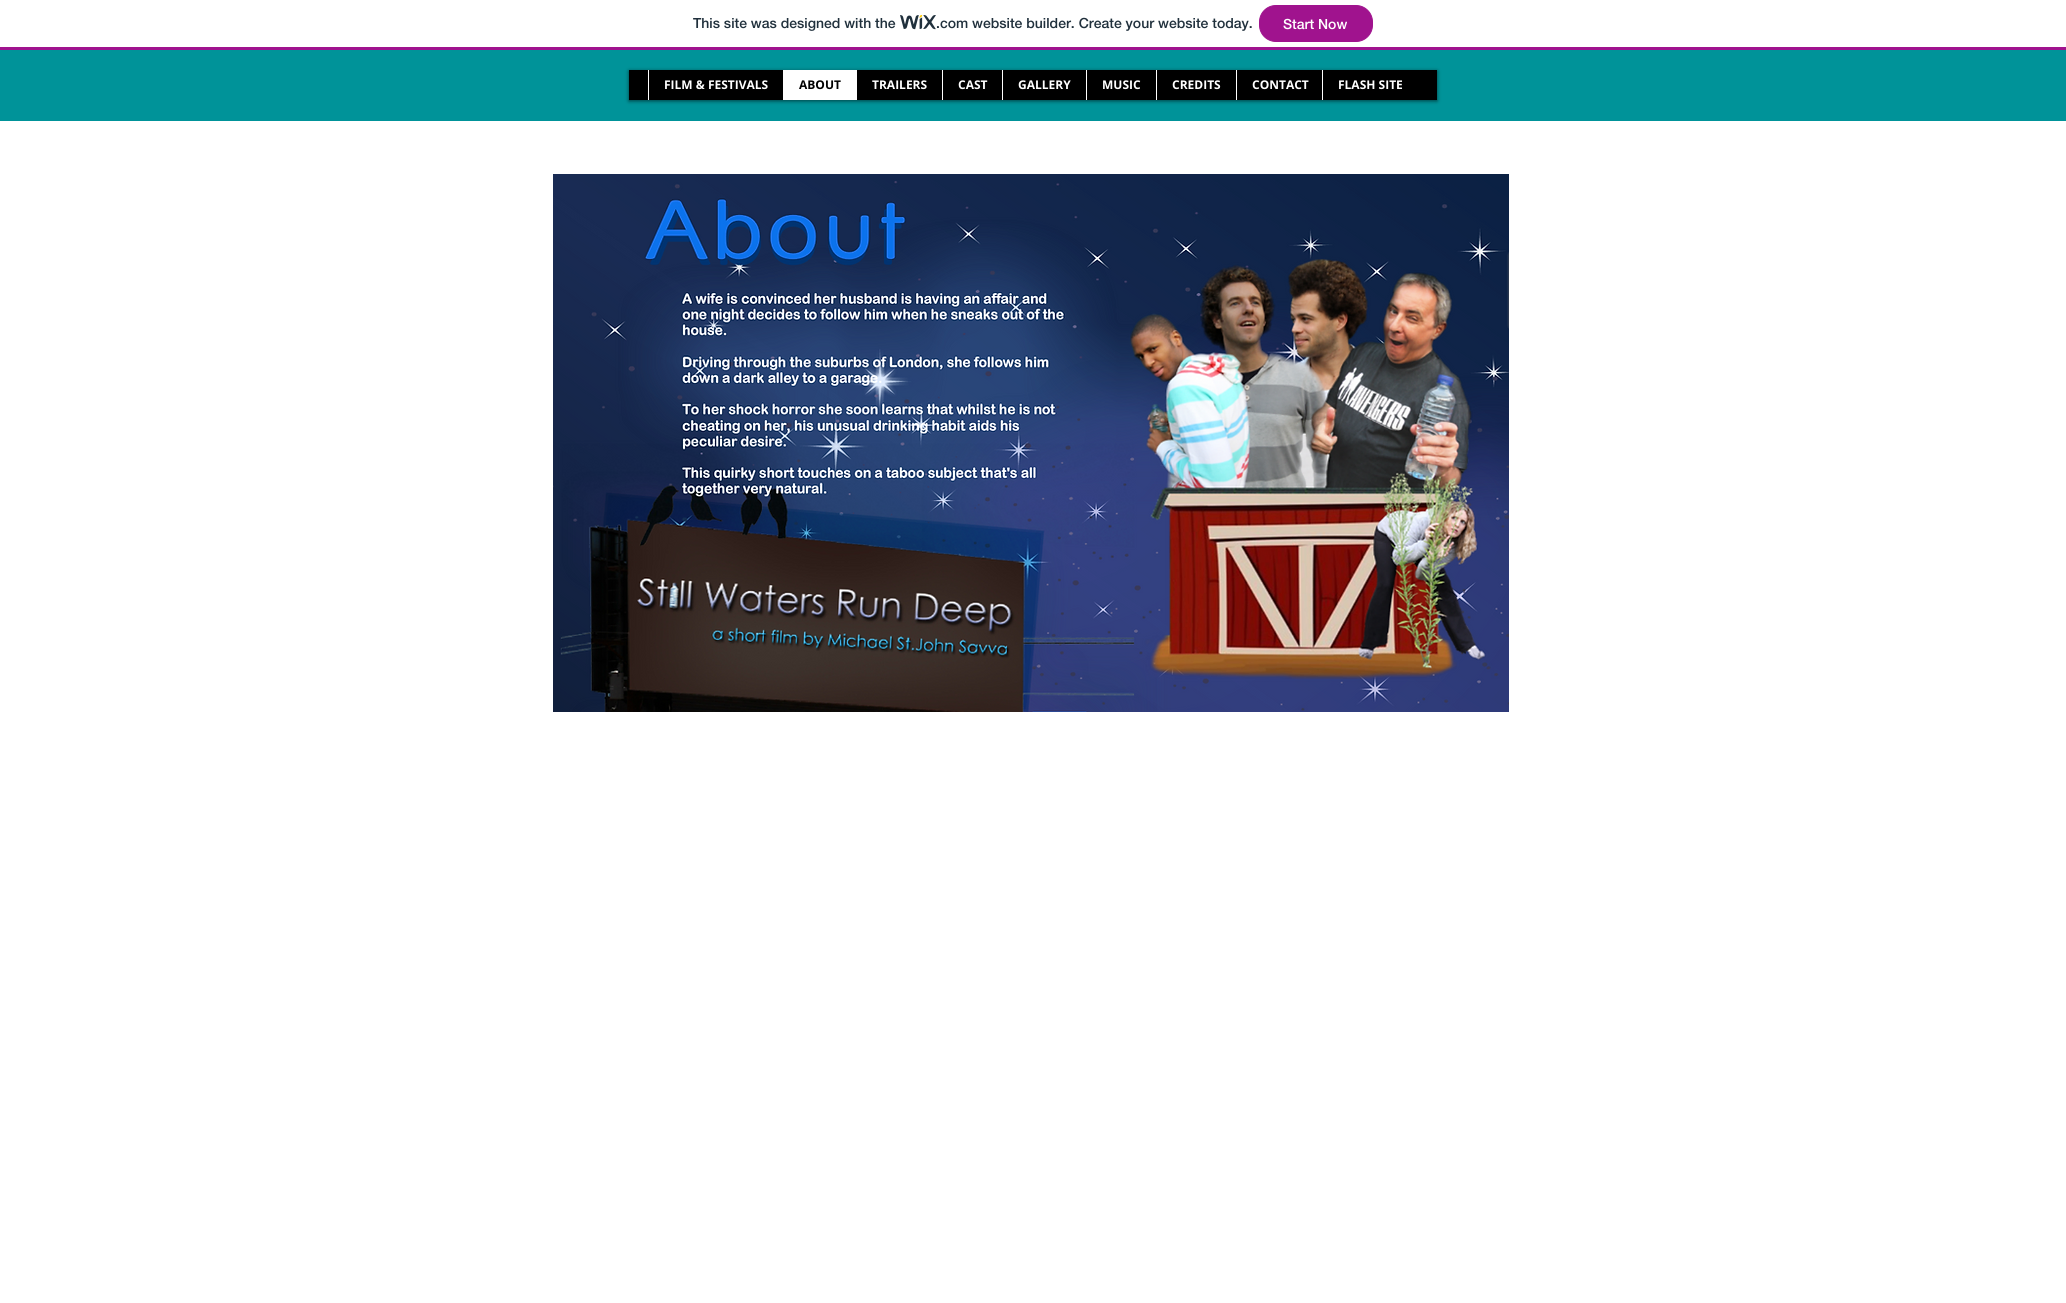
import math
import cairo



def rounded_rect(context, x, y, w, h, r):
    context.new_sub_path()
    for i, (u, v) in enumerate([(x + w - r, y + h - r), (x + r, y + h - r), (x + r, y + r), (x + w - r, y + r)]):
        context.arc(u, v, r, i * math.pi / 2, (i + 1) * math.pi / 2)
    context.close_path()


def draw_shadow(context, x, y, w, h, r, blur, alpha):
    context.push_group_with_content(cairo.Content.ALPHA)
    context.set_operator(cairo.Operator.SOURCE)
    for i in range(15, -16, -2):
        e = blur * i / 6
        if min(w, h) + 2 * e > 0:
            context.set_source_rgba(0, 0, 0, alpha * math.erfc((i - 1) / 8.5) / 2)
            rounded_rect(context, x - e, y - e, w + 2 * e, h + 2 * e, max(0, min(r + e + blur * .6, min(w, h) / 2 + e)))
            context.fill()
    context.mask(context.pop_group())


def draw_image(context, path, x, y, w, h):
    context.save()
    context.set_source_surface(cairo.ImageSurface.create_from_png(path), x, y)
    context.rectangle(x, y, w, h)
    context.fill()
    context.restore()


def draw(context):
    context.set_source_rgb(1, 1, 1)
    context.paint()
    context.set_source_rgb(160 / 255, 19 / 255, 142 / 255)
    context.rectangle(0, 47, 2066, 3)
    context.fill()
    draw_image(context, "images/1.png", 900, 15, 36, 15)
    rounded_rect(context, 1259.5, 5.5, 113, 36, 16.5)
    context.fill_preserve()
    context.set_line_width(1)
    context.stroke()
    context.set_source_rgb(0, 147 / 255, 153 / 255)
    context.rectangle(0, 50, 2066, 71)
    context.fill()
    context.set_source_rgb(0, 0, 0)
    draw_shadow(context, 629, 71, 808, 30, 0, 2, 0.6)
    context.set_source_rgb(0, 0, 0)
    context.rectangle(629, 70, 808, 30)
    context.fill()
    context.set_source_rgb(1, 1, 1)
    context.rectangle(648, 70, 1, 30)
    context.fill()
    context.rectangle(783, 70, 74, 30)
    context.fill()
    context.rectangle(942, 70, 1, 30)
    context.fill()
    context.rectangle(1002, 70, 1, 30)
    context.fill()
    context.rectangle(1086, 70, 1, 30)
    context.fill()
    context.rectangle(1156, 70, 1, 30)
    context.fill()
    context.rectangle(1236, 70, 1, 30)
    context.fill()
    context.rectangle(1322, 70, 1, 30)
    context.fill()
    draw_image(context, "images/2.png", 553, 174, 956, 538)
    context.select_font_face("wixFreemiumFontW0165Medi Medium")
    context.set_font_size(14)
    context.set_source_rgb(32 / 255, 48 / 255, 60 / 255)
    context.move_to(693, 28)
    context.show_text("This site was designed with the")
    context.move_to(936, 28)
    context.show_text(".com website builder. Create your website today.")
    context.set_source_rgb(1, 1, 1)
    context.move_to(1283, 29)
    context.show_text("Start Now")
    context.select_font_face("Open Sans", cairo.FontSlant.NORMAL, cairo.FontWeight.BOLD)
    context.set_font_size(12)
    context.move_to(664, 89)
    context.show_text("FILM & FESTIVALS")
    context.set_source_rgb(0, 0, 0)
    context.move_to(799, 89)
    context.show_text("ABOUT")
    context.set_source_rgb(1, 1, 1)
    context.move_to(872, 89)
    context.show_text("TRAILERS")
    context.move_to(958, 89)
    context.show_text("CAST")
    context.move_to(1018, 89)
    context.show_text("GALLERY")
    context.move_to(1102, 89)
    context.show_text("MUSIC")
    context.move_to(1172, 89)
    context.show_text("CREDITS")
    context.move_to(1252, 89)
    context.show_text("CONTACT")
    context.move_to(1338, 89)
    context.show_text("FLASH SITE")


surface = cairo.ImageSurface(cairo.Format.RGB24, 2066, 1303)
context = cairo.Context(surface)
options = cairo.FontOptions()
options.set_hint_metrics(cairo.HintMetrics.OFF)
options.set_hint_style(cairo.HintStyle.NONE)
context.set_font_options(options)
context.set_miter_limit(4)
draw(context)
surface.write_to_png("out.png")
